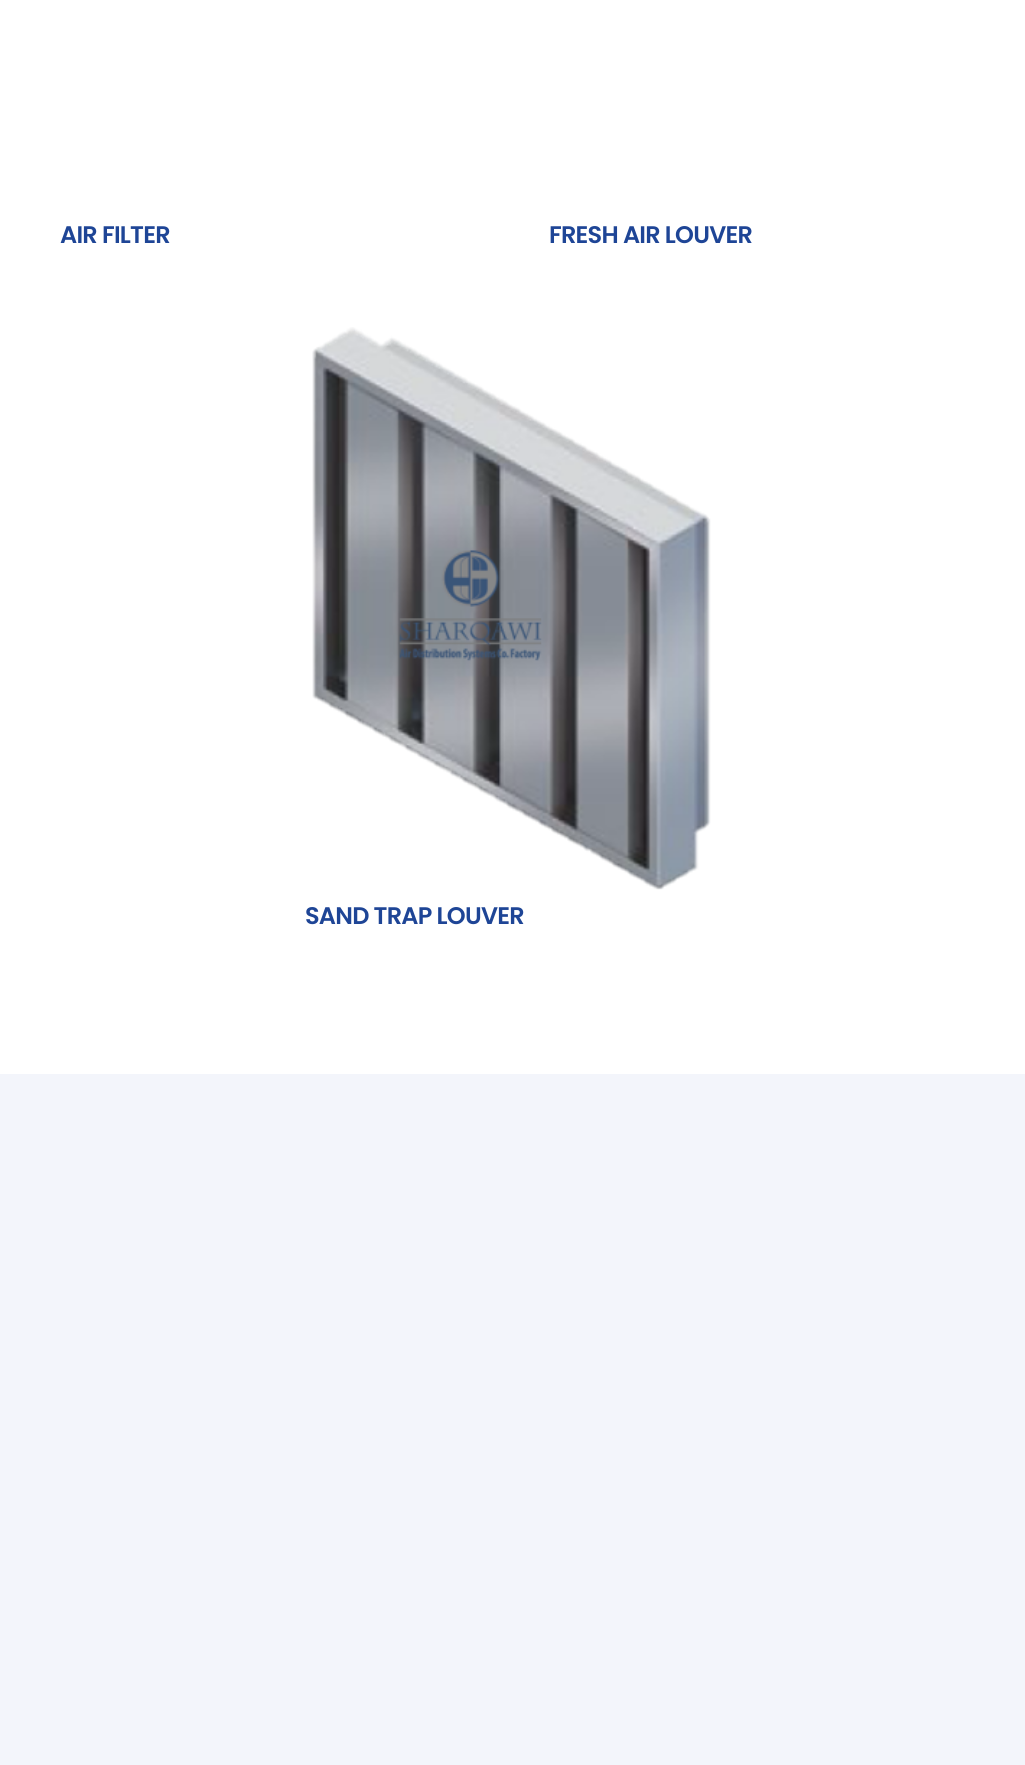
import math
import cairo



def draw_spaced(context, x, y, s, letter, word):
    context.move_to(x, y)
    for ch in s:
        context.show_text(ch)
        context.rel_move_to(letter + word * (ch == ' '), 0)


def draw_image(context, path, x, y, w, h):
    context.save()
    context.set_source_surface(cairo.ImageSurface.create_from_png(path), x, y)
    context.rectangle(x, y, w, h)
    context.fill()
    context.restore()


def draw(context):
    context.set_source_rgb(243 / 255, 245 / 255, 251 / 255)
    context.paint()
    context.set_source_rgb(1, 1, 1)
    context.rectangle(0, 0, 1025, 1074)
    context.fill()
    draw_image(context, "images/1.png", 312, 327, 399, 563)
    context.select_font_face("Poppins SemiBold")
    context.set_font_size(24)
    context.set_source_rgb(30 / 255, 69 / 255, 150 / 255)
    draw_spaced(context, 60, 243, "AIR FILTER", -0.75, 0)
    draw_spaced(context, 549, 243, "FRESH AIR LOUVER", -0.75, 0)
    draw_spaced(context, 305, 924, "SAND TRAP LOUVER", -0.75, 0)


surface = cairo.ImageSurface(cairo.Format.RGB24, 1025, 1765)
context = cairo.Context(surface)
options = cairo.FontOptions()
options.set_hint_metrics(cairo.HintMetrics.OFF)
options.set_hint_style(cairo.HintStyle.NONE)
context.set_font_options(options)
context.set_miter_limit(4)
draw(context)
surface.write_to_png("out.png")
